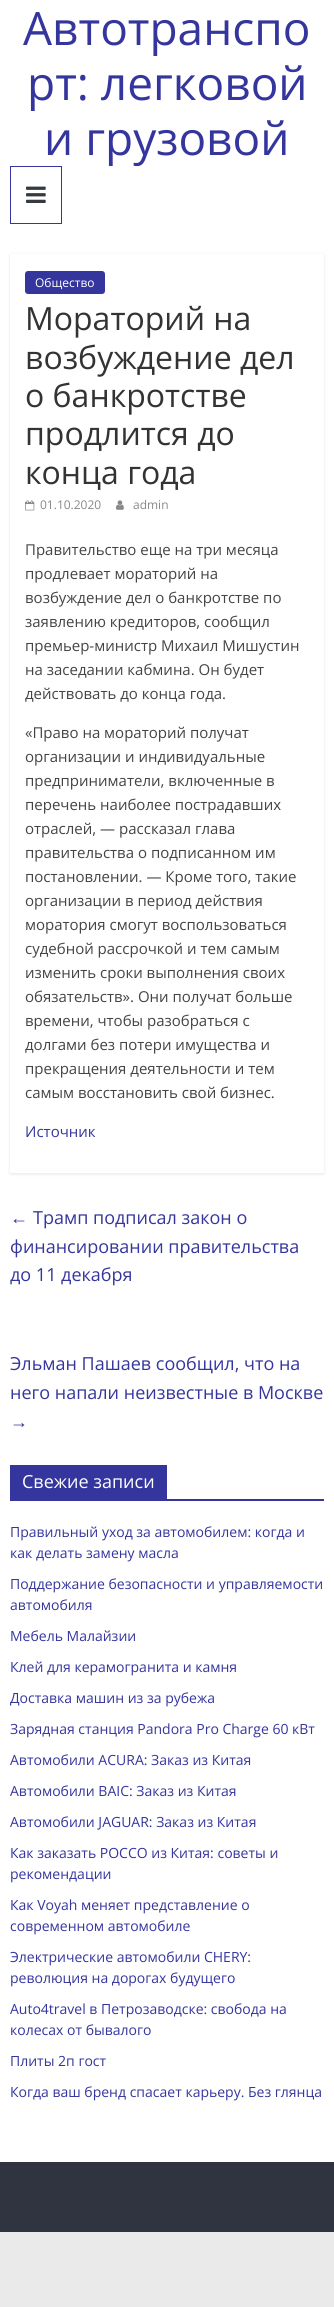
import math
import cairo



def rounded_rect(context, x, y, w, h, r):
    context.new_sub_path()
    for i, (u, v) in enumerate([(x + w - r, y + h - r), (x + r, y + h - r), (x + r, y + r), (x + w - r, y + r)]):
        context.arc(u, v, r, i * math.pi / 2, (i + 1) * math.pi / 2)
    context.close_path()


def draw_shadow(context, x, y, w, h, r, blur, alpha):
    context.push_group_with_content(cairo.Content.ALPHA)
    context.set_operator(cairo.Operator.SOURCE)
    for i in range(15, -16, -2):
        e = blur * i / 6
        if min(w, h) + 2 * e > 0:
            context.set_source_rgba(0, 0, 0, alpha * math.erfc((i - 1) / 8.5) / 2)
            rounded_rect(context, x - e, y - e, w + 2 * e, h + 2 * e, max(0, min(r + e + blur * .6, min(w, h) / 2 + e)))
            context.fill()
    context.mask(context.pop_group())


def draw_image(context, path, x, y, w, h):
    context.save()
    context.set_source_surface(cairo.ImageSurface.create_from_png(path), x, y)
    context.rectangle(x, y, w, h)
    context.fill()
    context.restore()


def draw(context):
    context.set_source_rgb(234 / 255, 234 / 255, 234 / 255)
    context.paint()
    context.set_source_rgb(1, 1, 1)
    context.rectangle(0, 0, 334, 2162)
    context.fill()
    context.rectangle(10.5, 166.5, 51, 57)
    context.set_source_rgb(53 / 255, 53 / 255, 158 / 255)
    context.set_line_width(1)
    context.stroke()
    draw_image(context, "images/1.png", 26, 186, 20, 17)
    context.save()
    context.set_fill_rule(cairo.FillRule.EVEN_ODD)
    context.new_path()
    context.move_to(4, 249)
    context.line_to(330, 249)
    context.line_to(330, 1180)
    context.line_to(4, 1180)
    context.close_path()
    context.move_to(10, 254)
    context.line_to(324, 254)
    context.line_to(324, 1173)
    context.line_to(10, 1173)
    context.close_path()
    context.clip()
    context.set_source_rgb(0, 0, 0)
    draw_shadow(context, 10, 255, 314, 919, 0, 1.5, 0.1)
    context.restore()
    rounded_rect(context, 25, 271, 80, 23, 3)
    context.fill()
    draw_image(context, "images/2.png", 25, 500, 10, 11)
    draw_image(context, "images/3.png", 116, 500, 8, 10)
    context.rectangle(10, 1499, 314, 2)
    context.fill()
    context.rectangle(10, 1465, 157, 34)
    context.fill()
    context.set_source_rgb(48 / 255, 52 / 255, 64 / 255)
    context.rectangle(0, 2162, 334, 70)
    context.fill()
    context.select_font_face("Open Sans")
    context.set_font_size(46)
    context.set_source_rgb(53 / 255, 53 / 255, 158 / 255)
    context.move_to(23, 45)
    context.show_text("Автотранспо")
    context.move_to(27, 100)
    context.show_text("рт: легковой")
    context.move_to(44, 155)
    context.show_text("и грузовой")
    context.set_font_size(12)
    context.set_source_rgb(1, 1, 1)
    context.move_to(35, 287)
    context.show_text("Общество")
    context.set_font_size(32)
    context.set_source_rgb(51 / 255, 51 / 255, 51 / 255)
    context.move_to(25, 330)
    context.show_text("Мораторий на")
    context.move_to(25, 369)
    context.show_text("возбуждение дел")
    context.move_to(25, 407)
    context.show_text("о банкротстве")
    context.move_to(25, 445)
    context.show_text("продлится до")
    context.move_to(25, 484)
    context.show_text("конца года")
    context.set_font_size(12)
    context.set_source_rgb(136 / 255, 136 / 255, 136 / 255)
    context.move_to(40, 509)
    context.show_text("01.10.2020")
    context.move_to(133, 509)
    context.show_text("admin")
    context.set_font_size(15)
    context.set_source_rgb(68 / 255, 68 / 255, 68 / 255)
    context.move_to(25, 555)
    context.show_text("Правительство еще на три месяца")
    context.move_to(25, 579)
    context.show_text("продлевает мораторий на")
    context.move_to(25, 603)
    context.show_text("возбуждение дел о банкротстве по")
    context.move_to(25, 627)
    context.show_text("заявлению кредиторов, сообщил")
    context.move_to(25, 651)
    context.show_text("премьер-министр Михаил Мишустин")
    context.move_to(25, 675)
    context.show_text("на заседании кабмина. Он будет")
    context.move_to(25, 699)
    context.show_text("действовать до конца года.")
    context.move_to(25, 738)
    context.show_text("«Право на мораторий получат")
    context.move_to(25, 762)
    context.show_text("организации и индивидуальные")
    context.move_to(25, 786)
    context.show_text("предприниматели, включенные в")
    context.move_to(25, 810)
    context.show_text("перечень наиболее пострадавших")
    context.move_to(25, 834)
    context.show_text("отраслей, — рассказал глава")
    context.move_to(25, 858)
    context.show_text("правительства о подписанном им")
    context.move_to(25, 882)
    context.show_text("постановлении. — Кроме того, такие")
    context.move_to(25, 906)
    context.show_text("организации в период действия")
    context.move_to(25, 930)
    context.show_text("моратория смогут воспользоваться")
    context.move_to(25, 954)
    context.show_text("судебной рассрочкой и тем самым")
    context.move_to(25, 978)
    context.show_text("изменить сроки выполнения своих")
    context.move_to(25, 1002)
    context.show_text("обязательств». Они получат больше")
    context.move_to(25, 1026)
    context.show_text("времени, чтобы разобраться с")
    context.move_to(25, 1050)
    context.show_text("долгами без потери имущества и")
    context.move_to(25, 1074)
    context.show_text("прекращения деятельности и тем")
    context.move_to(25, 1098)
    context.show_text("самым восстановить свой бизнес.")
    context.set_source_rgb(53 / 255, 53 / 255, 158 / 255)
    context.move_to(25, 1137)
    context.show_text("Источник")
    context.select_font_face("Liberation Serif")
    context.set_font_size(18)
    context.move_to(10, 1224)
    context.show_text("←")
    context.select_font_face("Open Sans")
    context.move_to(33, 1224)
    context.show_text("Трамп подписал закон о")
    context.move_to(10, 1253)
    context.show_text("финансировании правительства")
    context.move_to(10, 1281)
    context.show_text("до 11 декабря")
    context.move_to(10, 1370)
    context.show_text("Эльман Пашаев сообщил, что на")
    context.move_to(10, 1399)
    context.show_text("него напали неизвестные в Москве")
    context.select_font_face("Liberation Serif")
    context.move_to(10, 1428)
    context.show_text("→")
    context.select_font_face("Open Sans")
    context.set_source_rgb(1, 1, 1)
    context.move_to(22, 1488)
    context.show_text("Свежие записи")
    context.set_font_size(14)
    context.set_source_rgb(53 / 255, 53 / 255, 158 / 255)
    context.move_to(10, 1537)
    context.show_text("Правильный уход за автомобилем: когда и")
    context.move_to(10, 1558)
    context.show_text("как делать замену масла")
    context.move_to(10, 1589)
    context.show_text("Поддержание безопасности и управляемости")
    context.move_to(10, 1610)
    context.show_text("автомобиля")
    context.move_to(10, 1641)
    context.show_text("Мебель Малайзии")
    context.move_to(10, 1672)
    context.show_text("Клей для керамогранита и камня")
    context.move_to(10, 1703)
    context.show_text("Доставка машин из за рубежа")
    context.move_to(10, 1734)
    context.show_text("Зарядная станция Pandora Pro Charge 60 кВт")
    context.move_to(10, 1765)
    context.show_text("Автомобили ACURA: Заказ из Китая")
    context.move_to(10, 1796)
    context.show_text("Автомобили BAIC: Заказ из Китая")
    context.move_to(10, 1827)
    context.show_text("Автомобили JAGUAR: Заказ из Китая")
    context.move_to(10, 1858)
    context.show_text("Как заказать POCCO из Китая: советы и")
    context.move_to(10, 1879)
    context.show_text("рекомендации")
    context.move_to(10, 1910)
    context.show_text("Как Voyah меняет представление о")
    context.move_to(10, 1931)
    context.show_text("современном автомобиле")
    context.move_to(10, 1962)
    context.show_text("Электрические автомобили CHERY:")
    context.move_to(10, 1983)
    context.show_text("революция на дорогах будущего")
    context.move_to(10, 2014)
    context.show_text("Auto4travel в Петрозаводске: свобода на")
    context.move_to(10, 2035)
    context.show_text("колесах от бывалого")
    context.move_to(10, 2066)
    context.show_text("Плиты 2п гост")
    context.move_to(10, 2097)
    context.show_text("Когда ваш бренд спасает карьеру. Без глянца")


surface = cairo.ImageSurface(cairo.Format.RGB24, 334, 2307)
context = cairo.Context(surface)
options = cairo.FontOptions()
options.set_hint_metrics(cairo.HintMetrics.OFF)
options.set_hint_style(cairo.HintStyle.NONE)
context.set_font_options(options)
context.set_miter_limit(4)
draw(context)
surface.write_to_png("out.png")
